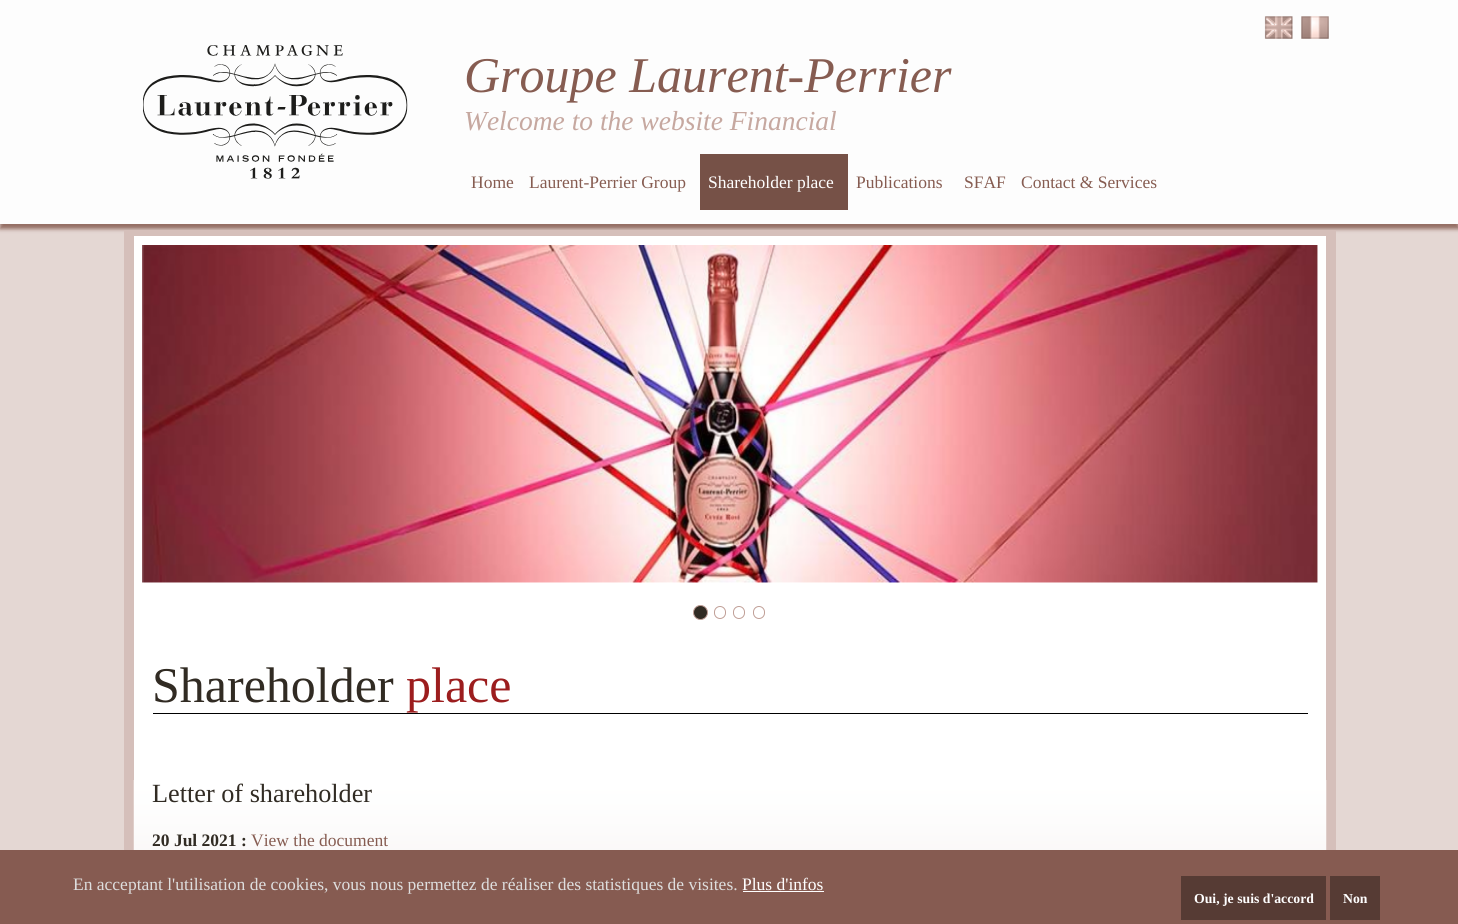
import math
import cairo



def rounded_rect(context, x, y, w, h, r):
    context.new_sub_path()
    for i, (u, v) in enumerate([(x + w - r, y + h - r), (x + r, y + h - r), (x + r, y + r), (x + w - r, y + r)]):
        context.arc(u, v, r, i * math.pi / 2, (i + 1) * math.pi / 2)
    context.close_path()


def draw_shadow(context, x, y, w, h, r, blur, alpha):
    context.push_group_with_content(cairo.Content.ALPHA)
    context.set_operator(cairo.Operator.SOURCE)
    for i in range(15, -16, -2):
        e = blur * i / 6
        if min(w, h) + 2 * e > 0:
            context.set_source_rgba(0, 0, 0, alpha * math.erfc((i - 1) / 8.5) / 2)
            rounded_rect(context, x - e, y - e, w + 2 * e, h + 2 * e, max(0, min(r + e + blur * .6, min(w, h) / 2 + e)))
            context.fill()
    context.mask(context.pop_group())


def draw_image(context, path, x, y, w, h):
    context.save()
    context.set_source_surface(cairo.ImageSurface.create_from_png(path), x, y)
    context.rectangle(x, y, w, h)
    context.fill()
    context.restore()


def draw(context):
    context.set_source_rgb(228 / 255, 215 / 255, 211 / 255)
    context.paint()
    context.set_source_rgb(148 / 255, 110 / 255, 100 / 255)
    draw_shadow(context, 0, 5, 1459, 224, 0, 2, 1)
    context.set_source_rgb(253 / 255, 253 / 255, 253 / 255)
    context.rectangle(0, 0, 1458, 224)
    context.fill()
    draw_image(context, "images/1.png", 1264, 16, 29, 23)
    draw_image(context, "images/2.png", 1301, 16, 28, 23)
    draw_image(context, "images/3.png", 143, 45, 265, 134)
    context.set_source_rgb(118 / 255, 81 / 255, 71 / 255)
    context.rectangle(700, 154, 148, 56)
    context.fill()
    context.set_source_rgb(1, 1, 1)
    context.rectangle(134, 236, 1192, 544)
    context.fill()
    context.set_source_rgb(213 / 255, 191 / 255, 186 / 255)
    context.rectangle(134, 230, 1192, 6)
    context.fill()
    context.rectangle(1326, 230, 10, 620)
    context.fill()
    context.rectangle(124, 230, 10, 620)
    context.fill()
    draw_image(context, "images/4.png", 142, 245, 1176, 338)
    context.set_source_rgb(49 / 255, 43 / 255, 35 / 255)
    context.arc(700.5, 612.5, 7, 0, 2 * math.pi)
    context.fill_preserve()
    context.set_source_rgb(192 / 255, 159 / 255, 151 / 255)
    context.set_line_width(1)
    context.stroke()
    rounded_rect(context, 714.5, 606.5, 11, 12, 5.5)
    context.stroke()
    rounded_rect(context, 733.5, 606.5, 11, 12, 5.5)
    context.stroke()
    rounded_rect(context, 753.5, 606.5, 11, 12, 5.5)
    context.stroke()
    draw_image(context, "images/5.png", 133, 780, 1194, 70)
    context.set_source_rgb(0, 0, 0)
    context.rectangle(153, 713, 1155, 1)
    context.fill()
    context.set_source_rgb(134 / 255, 91 / 255, 81 / 255)
    context.rectangle(0, 850, 1458, 74)
    context.fill()
    context.set_source_rgb(1, 1, 1)
    context.rectangle(743, 891, 81, 1)
    context.fill()
    context.set_source_rgb(86 / 255, 59 / 255, 52 / 255)
    context.rectangle(1181, 876, 145, 44)
    context.fill()
    context.rectangle(1330, 876, 50, 44)
    context.fill()
    context.select_font_face("Liberation Serif", cairo.FontSlant.ITALIC)
    context.set_font_size(50)
    context.set_source_rgb(134 / 255, 92 / 255, 81 / 255)
    context.move_to(464, 92)
    context.show_text("Groupe Laurent-Perrier")
    context.set_font_size(27.5)
    context.set_source_rgb(198 / 255, 168 / 255, 160 / 255)
    context.move_to(464, 130)
    context.show_text("Welcome to the website Financial")
    context.select_font_face("Liberation Serif")
    context.set_font_size(17.5)
    context.set_source_rgb(134 / 255, 92 / 255, 81 / 255)
    context.move_to(471, 188)
    context.show_text("Home")
    context.move_to(529, 188)
    context.show_text("Laurent-Perrier Group")
    context.set_source_rgb(1, 1, 1)
    context.move_to(708, 188)
    context.show_text("Shareholder place")
    context.set_source_rgb(134 / 255, 92 / 255, 81 / 255)
    context.move_to(856, 188)
    context.show_text("Publications")
    context.move_to(964, 188)
    context.show_text("SFAF")
    context.move_to(1021, 188)
    context.show_text("Contact & Services")
    context.set_font_size(50)
    context.set_source_rgb(49 / 255, 43 / 255, 35 / 255)
    context.move_to(152, 702)
    context.show_text("Shareholder")
    context.set_source_rgb(156 / 255, 29 / 255, 30 / 255)
    context.move_to(406, 702)
    context.show_text("place")
    context.set_font_size(26.25)
    context.set_source_rgb(49 / 255, 43 / 255, 35 / 255)
    context.move_to(152, 802)
    context.show_text("Letter of shareholder")
    context.select_font_face("Liberation Serif", cairo.FontSlant.NORMAL, cairo.FontWeight.BOLD)
    context.set_font_size(17.5)
    context.move_to(152, 846)
    context.show_text("20 Jul 2021 :")
    context.select_font_face("Liberation Serif")
    context.set_source_rgb(134 / 255, 92 / 255, 81 / 255)
    context.move_to(251, 846)
    context.show_text("View the document")
    context.set_source_rgb(222 / 255, 222 / 255, 222 / 255)
    context.move_to(73, 890)
    context.show_text("En acceptant l'utilisation de cookies, vous nous permettez de réaliser des statistiques de visites.")
    context.set_source_rgb(1, 1, 1)
    context.move_to(742, 890)
    context.show_text("Plus d'infos")
    context.select_font_face("Liberation Serif", cairo.FontSlant.NORMAL, cairo.FontWeight.BOLD)
    context.set_font_size(13.75)
    context.move_to(1194, 903)
    context.show_text("Oui, je suis d'accord")
    context.move_to(1343, 903)
    context.show_text("Non")


surface = cairo.ImageSurface(cairo.Format.RGB24, 1458, 924)
context = cairo.Context(surface)
options = cairo.FontOptions()
options.set_hint_metrics(cairo.HintMetrics.OFF)
options.set_hint_style(cairo.HintStyle.NONE)
context.set_font_options(options)
context.set_miter_limit(4)
draw(context)
surface.write_to_png("out.png")
